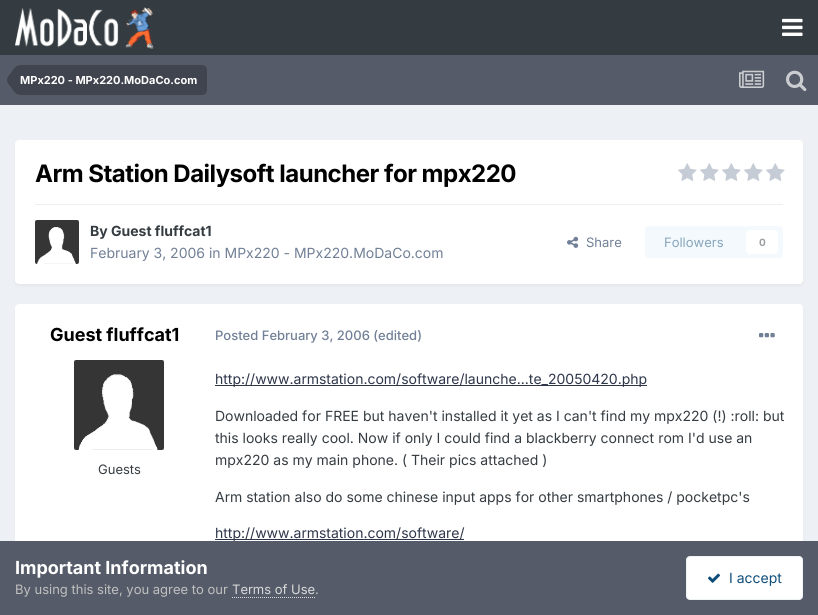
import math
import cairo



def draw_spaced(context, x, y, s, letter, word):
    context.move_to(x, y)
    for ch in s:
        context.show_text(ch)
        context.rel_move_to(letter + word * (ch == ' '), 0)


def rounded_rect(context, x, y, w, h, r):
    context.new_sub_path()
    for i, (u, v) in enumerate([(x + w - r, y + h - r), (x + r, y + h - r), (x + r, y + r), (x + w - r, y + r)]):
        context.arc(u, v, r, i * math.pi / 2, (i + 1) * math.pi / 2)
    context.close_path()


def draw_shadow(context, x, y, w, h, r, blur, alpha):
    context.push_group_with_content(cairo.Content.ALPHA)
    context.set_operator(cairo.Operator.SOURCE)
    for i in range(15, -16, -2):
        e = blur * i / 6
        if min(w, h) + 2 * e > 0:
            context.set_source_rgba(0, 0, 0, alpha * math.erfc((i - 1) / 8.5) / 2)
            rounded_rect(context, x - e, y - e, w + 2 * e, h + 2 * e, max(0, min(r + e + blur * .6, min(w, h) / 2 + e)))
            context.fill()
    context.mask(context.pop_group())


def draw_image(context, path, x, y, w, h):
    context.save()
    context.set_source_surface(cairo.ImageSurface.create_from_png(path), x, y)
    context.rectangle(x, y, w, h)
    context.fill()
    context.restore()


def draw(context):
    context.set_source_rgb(237 / 255, 240 / 255, 244 / 255)
    context.paint()
    context.set_source_rgb(53 / 255, 60 / 255, 65 / 255)
    context.rectangle(0, 0, 818, 55)
    context.fill()
    draw_image(context, "images/1.png", 15, 6, 139, 43)
    draw_image(context, "images/2.png", 782, 18, 21, 18)
    context.set_source_rgb(85 / 255, 91 / 255, 104 / 255)
    context.rectangle(0, 55, 818, 50)
    context.fill()
    context.set_source_rgb(64 / 255, 68 / 255, 78 / 255)
    context.new_path()
    context.move_to(20, 65)
    context.line_to(202, 65)
    context.curve_to(205, 65, 207, 67, 207, 70)
    context.line_to(207, 90)
    context.curve_to(207, 93, 205, 95, 202, 95)
    context.line_to(20, 95)
    context.close_path()
    context.fill()
    context.new_path()
    context.move_to(20, 80)
    context.line_to(20, 95)
    context.curve_to(15.5, 95, 13.5, 90.5, 11, 87)
    context.curve_to(9.5, 85, 7, 83, 7, 80)
    context.close_path()
    context.move_to(20, 80)
    context.line_to(7, 80)
    context.curve_to(7, 77, 9.5, 75, 11, 73)
    context.curve_to(13.5, 69.5, 15.5, 65, 20, 65)
    context.close_path()
    context.fill()
    draw_image(context, "images/3.png", 739, 70, 26, 18)
    draw_image(context, "images/4.png", 786, 70, 21, 22)
    context.set_source_rgb(85 / 255, 91 / 255, 104 / 255)
    draw_shadow(context, 16, 143, 786, 142, 3, 2, 0.1)
    context.set_source_rgb(1, 1, 1)
    rounded_rect(context, 15, 140, 788, 144, 4)
    context.fill()
    draw_image(context, "images/5.png", 678, 163, 19, 18)
    draw_image(context, "images/5.png", 700, 163, 19, 18)
    draw_image(context, "images/5.png", 722, 163, 19, 18)
    draw_image(context, "images/5.png", 744, 163, 19, 18)
    draw_image(context, "images/5.png", 766, 163, 19, 18)
    context.set_source_rgb(239 / 255, 239 / 255, 240 / 255)
    context.rectangle(35, 204, 748, 1)
    context.fill()
    draw_image(context, "images/6.png", 35, 220, 44, 44)
    draw_image(context, "images/7.png", 567, 236, 12, 12)
    context.set_source_rgb(244 / 255, 249 / 255, 253 / 255)
    rounded_rect(context, 645, 226, 138, 32, 4)
    context.fill()
    context.set_source_rgb(1, 1, 1)
    rounded_rect(context, 746, 230, 32, 24, 4)
    context.fill()
    context.set_source_rgb(85 / 255, 91 / 255, 104 / 255)
    draw_shadow(context, 16, 307, 786, 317, 3, 2, 0.1)
    context.set_source_rgb(1, 1, 1)
    rounded_rect(context, 15, 304, 788, 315, 4)
    context.fill()
    draw_image(context, "images/8.png", 74, 360, 90, 90)
    draw_image(context, "images/9.png", 759, 333, 16, 5)
    context.set_source_rgb(46 / 255, 54 / 255, 74 / 255)
    context.rectangle(215, 385, 432, 1)
    context.fill()
    context.rectangle(215, 539, 249, 1)
    context.fill()
    context.set_source_rgb(85 / 255, 91 / 255, 104 / 255)
    context.rectangle(0, 541, 818, 74)
    context.fill()
    context.new_path()
    context.move_to(232, 597.5)
    context.line_to(315, 597.5)
    context.set_source_rgb(218 / 255, 218 / 255, 218 / 255)
    context.set_line_width(1)
    context.set_dash([1, 1])
    context.stroke()
    context.set_source_rgb(1, 1, 1)
    rounded_rect(context, 686, 556, 117, 44, 4)
    context.fill()
    rounded_rect(context, 686.5, 556.5, 116, 43, 3.5)
    context.set_source_rgba(14 / 255, 76 / 255, 121 / 255, 0.07)
    context.set_dash([])
    context.stroke()
    draw_image(context, "images/10.png", 708, 573, 12, 10)
    context.select_font_face("Inter", cairo.FontSlant.NORMAL, cairo.FontWeight.BOLD)
    context.set_font_size(11)
    context.set_source_rgb(1, 1, 1)
    context.move_to(20, 84)
    context.show_text("MPx220 - MPx220.MoDaCo.com")
    context.set_font_size(24)
    context.set_source_rgb(0, 0, 0)
    draw_spaced(context, 35, 182, "Arm Station Dailysoft launcher for mpx220", -0.5, 0)
    context.set_font_size(14)
    context.set_source_rgb(53 / 255, 60 / 255, 65 / 255)
    context.move_to(90, 236)
    context.show_text("By Guest fluffcat1")
    context.select_font_face("Inter")
    context.set_source_rgb(113 / 255, 128 / 255, 150 / 255)
    context.move_to(90, 258)
    context.show_text("February 3, 2006 in MPx220 - MPx220.MoDaCo.com")
    context.set_font_size(13)
    context.move_to(586, 247)
    context.show_text("Share")
    context.set_source_rgb(135 / 255, 166 / 255, 188 / 255)
    context.move_to(664, 247)
    context.show_text("Followers")
    context.select_font_face("Inter", cairo.FontSlant.NORMAL, cairo.FontWeight.BOLD)
    context.set_font_size(10)
    context.set_source_rgb(154 / 255, 158 / 255, 160 / 255)
    context.move_to(759, 246)
    context.show_text("0")
    context.set_font_size(18)
    context.set_source_rgb(0, 0, 0)
    context.move_to(50, 341)
    context.show_text("Guest fluffcat1")
    context.select_font_face("Inter")
    context.set_font_size(13)
    context.set_source_rgb(53 / 255, 60 / 255, 65 / 255)
    context.move_to(98, 474)
    context.show_text("Guests")
    context.select_font_face("Inter Medium")
    context.set_source_rgb(113 / 255, 128 / 255, 150 / 255)
    context.move_to(215, 340)
    context.show_text("Posted February 3, 2006 (edited)")
    context.select_font_face("Inter")
    context.set_font_size(14)
    context.set_source_rgb(46 / 255, 54 / 255, 74 / 255)
    context.move_to(215, 384)
    context.show_text("http://www.armstation.com/software/launche...te_20050420.php")
    context.set_source_rgb(53 / 255, 60 / 255, 65 / 255)
    context.move_to(215, 421)
    context.show_text("Downloaded for FREE but haven't installed it yet as I can't find my mpx220 (!) :roll: but")
    context.move_to(215, 443)
    context.show_text("this looks really cool. Now if only I could find a blackberry connect rom I'd use an")
    context.move_to(215, 465)
    context.show_text("mpx220 as my main phone. ( Their pics attached )")
    context.move_to(215, 502)
    context.show_text("Arm station also do some chinese input apps for other smartphones / pocketpc's")
    context.set_source_rgb(46 / 255, 54 / 255, 74 / 255)
    context.move_to(215, 538)
    context.show_text("http://www.armstation.com/software/")
    context.select_font_face("Inter", cairo.FontSlant.NORMAL, cairo.FontWeight.BOLD)
    context.set_font_size(18)
    context.set_source_rgb(1, 1, 1)
    context.move_to(15, 574)
    context.show_text("Important Information")
    context.select_font_face("Inter")
    context.set_font_size(13)
    context.set_source_rgb(192 / 255, 192 / 255, 192 / 255)
    context.move_to(15, 594)
    context.show_text("By using this site, you agree to our")
    context.set_source_rgb(218 / 255, 218 / 255, 218 / 255)
    context.move_to(232, 594)
    context.show_text("Terms of Use")
    context.set_source_rgb(192 / 255, 192 / 255, 192 / 255)
    context.move_to(315, 594)
    context.show_text(".")
    context.set_font_size(14)
    context.set_source_rgb(14 / 255, 76 / 255, 121 / 255)
    context.move_to(729, 583)
    context.show_text("I accept")


surface = cairo.ImageSurface(cairo.Format.RGB24, 818, 615)
context = cairo.Context(surface)
options = cairo.FontOptions()
options.set_hint_metrics(cairo.HintMetrics.OFF)
options.set_hint_style(cairo.HintStyle.NONE)
context.set_font_options(options)
context.set_miter_limit(4)
draw(context)
surface.write_to_png("out.png")
